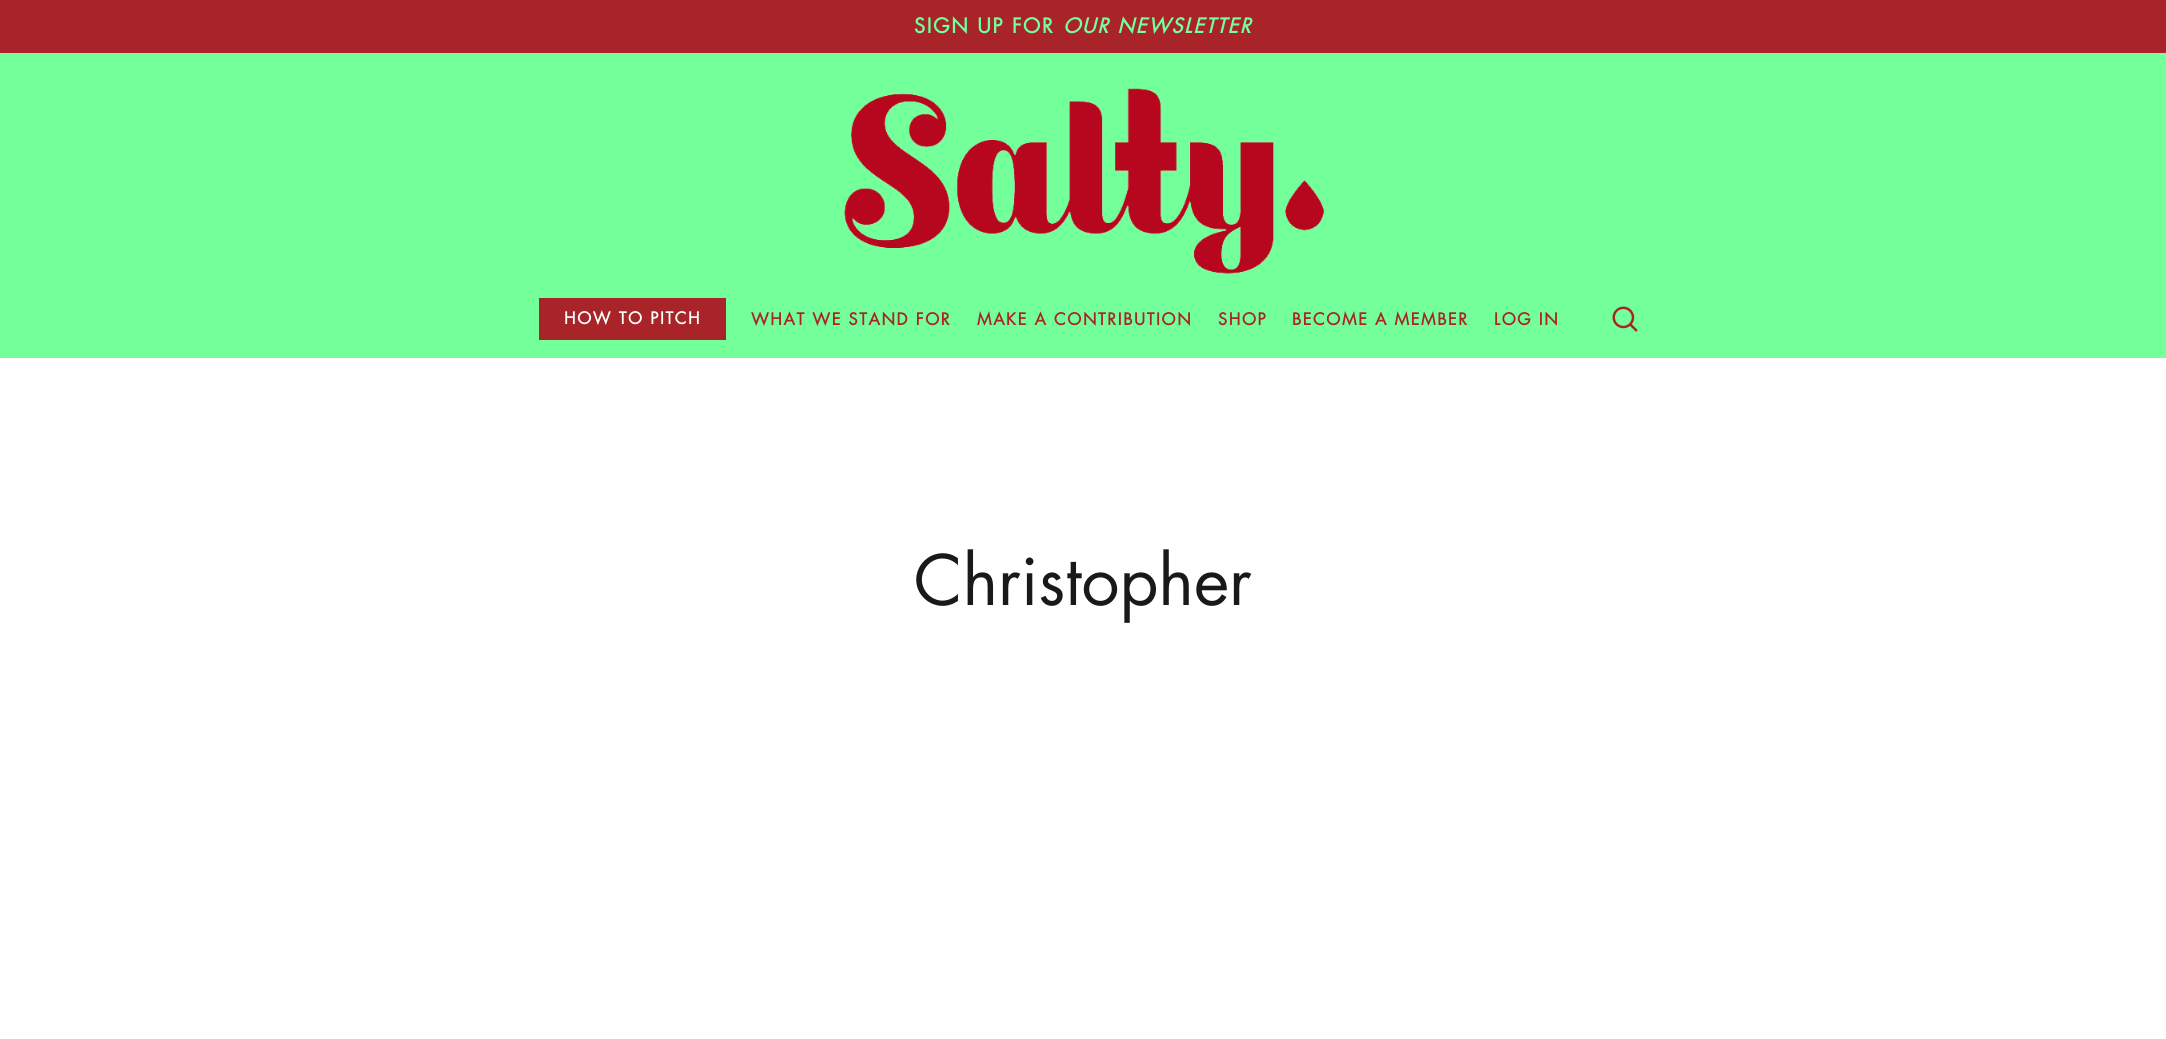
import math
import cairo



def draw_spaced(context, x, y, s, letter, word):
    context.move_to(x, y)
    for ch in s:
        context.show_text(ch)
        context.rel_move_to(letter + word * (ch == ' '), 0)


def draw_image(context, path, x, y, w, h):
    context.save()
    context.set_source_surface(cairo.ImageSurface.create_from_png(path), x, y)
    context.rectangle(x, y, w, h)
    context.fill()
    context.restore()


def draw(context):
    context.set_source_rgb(1, 1, 1)
    context.paint()
    context.set_source_rgb(115 / 255, 1, 153 / 255)
    context.rectangle(0, 53, 2166, 305)
    context.fill()
    context.set_source_rgb(168 / 255, 36 / 255, 40 / 255)
    context.rectangle(0, 0, 2166, 53)
    context.fill()
    draw_image(context, "images/1.png", 844, 88, 480, 186)
    context.rectangle(539, 298, 187, 42)
    context.fill()
    draw_image(context, "images/2.png", 1612, 306, 26, 26)
    context.select_font_face("Futura", cairo.FontSlant.NORMAL, cairo.FontWeight.BOLD)
    context.set_font_size(20)
    context.set_source_rgb(115 / 255, 1, 157 / 255)
    draw_spaced(context, 914, 33, "SIGN UP FOR", 1.6, 0)
    context.select_font_face("Futura", cairo.FontSlant.ITALIC, cairo.FontWeight.BOLD)
    draw_spaced(context, 1063, 33, "OUR NEWSLETTER", 1.6, 0)
    context.select_font_face("Futura", cairo.FontSlant.NORMAL, cairo.FontWeight.BOLD)
    context.set_font_size(16.25)
    context.set_source_rgb(1, 1, 1)
    draw_spaced(context, 564, 324, "HOW TO PITCH", 1.6, 0)
    context.set_source_rgb(168 / 255, 36 / 255, 40 / 255)
    draw_spaced(context, 751, 325, "WHAT WE STAND FOR", 1.6, 0)
    draw_spaced(context, 977, 325, "MAKE A CONTRIBUTION", 1.6, 0)
    draw_spaced(context, 1218, 325, "SHOP", 1.6, 0)
    draw_spaced(context, 1292, 325, "BECOME A MEMBER", 1.6, 0)
    draw_spaced(context, 1494, 325, "LOG IN", 1.6, 0)
    context.select_font_face("Futura")
    context.set_font_size(67.5)
    context.set_source_rgb(25 / 255, 25 / 255, 25 / 255)
    context.move_to(914, 605)
    context.show_text("Christopher")


surface = cairo.ImageSurface(cairo.Format.RGB24, 2166, 1039)
context = cairo.Context(surface)
options = cairo.FontOptions()
options.set_hint_metrics(cairo.HintMetrics.OFF)
options.set_hint_style(cairo.HintStyle.NONE)
context.set_font_options(options)
context.set_miter_limit(4)
draw(context)
surface.write_to_png("out.png")
